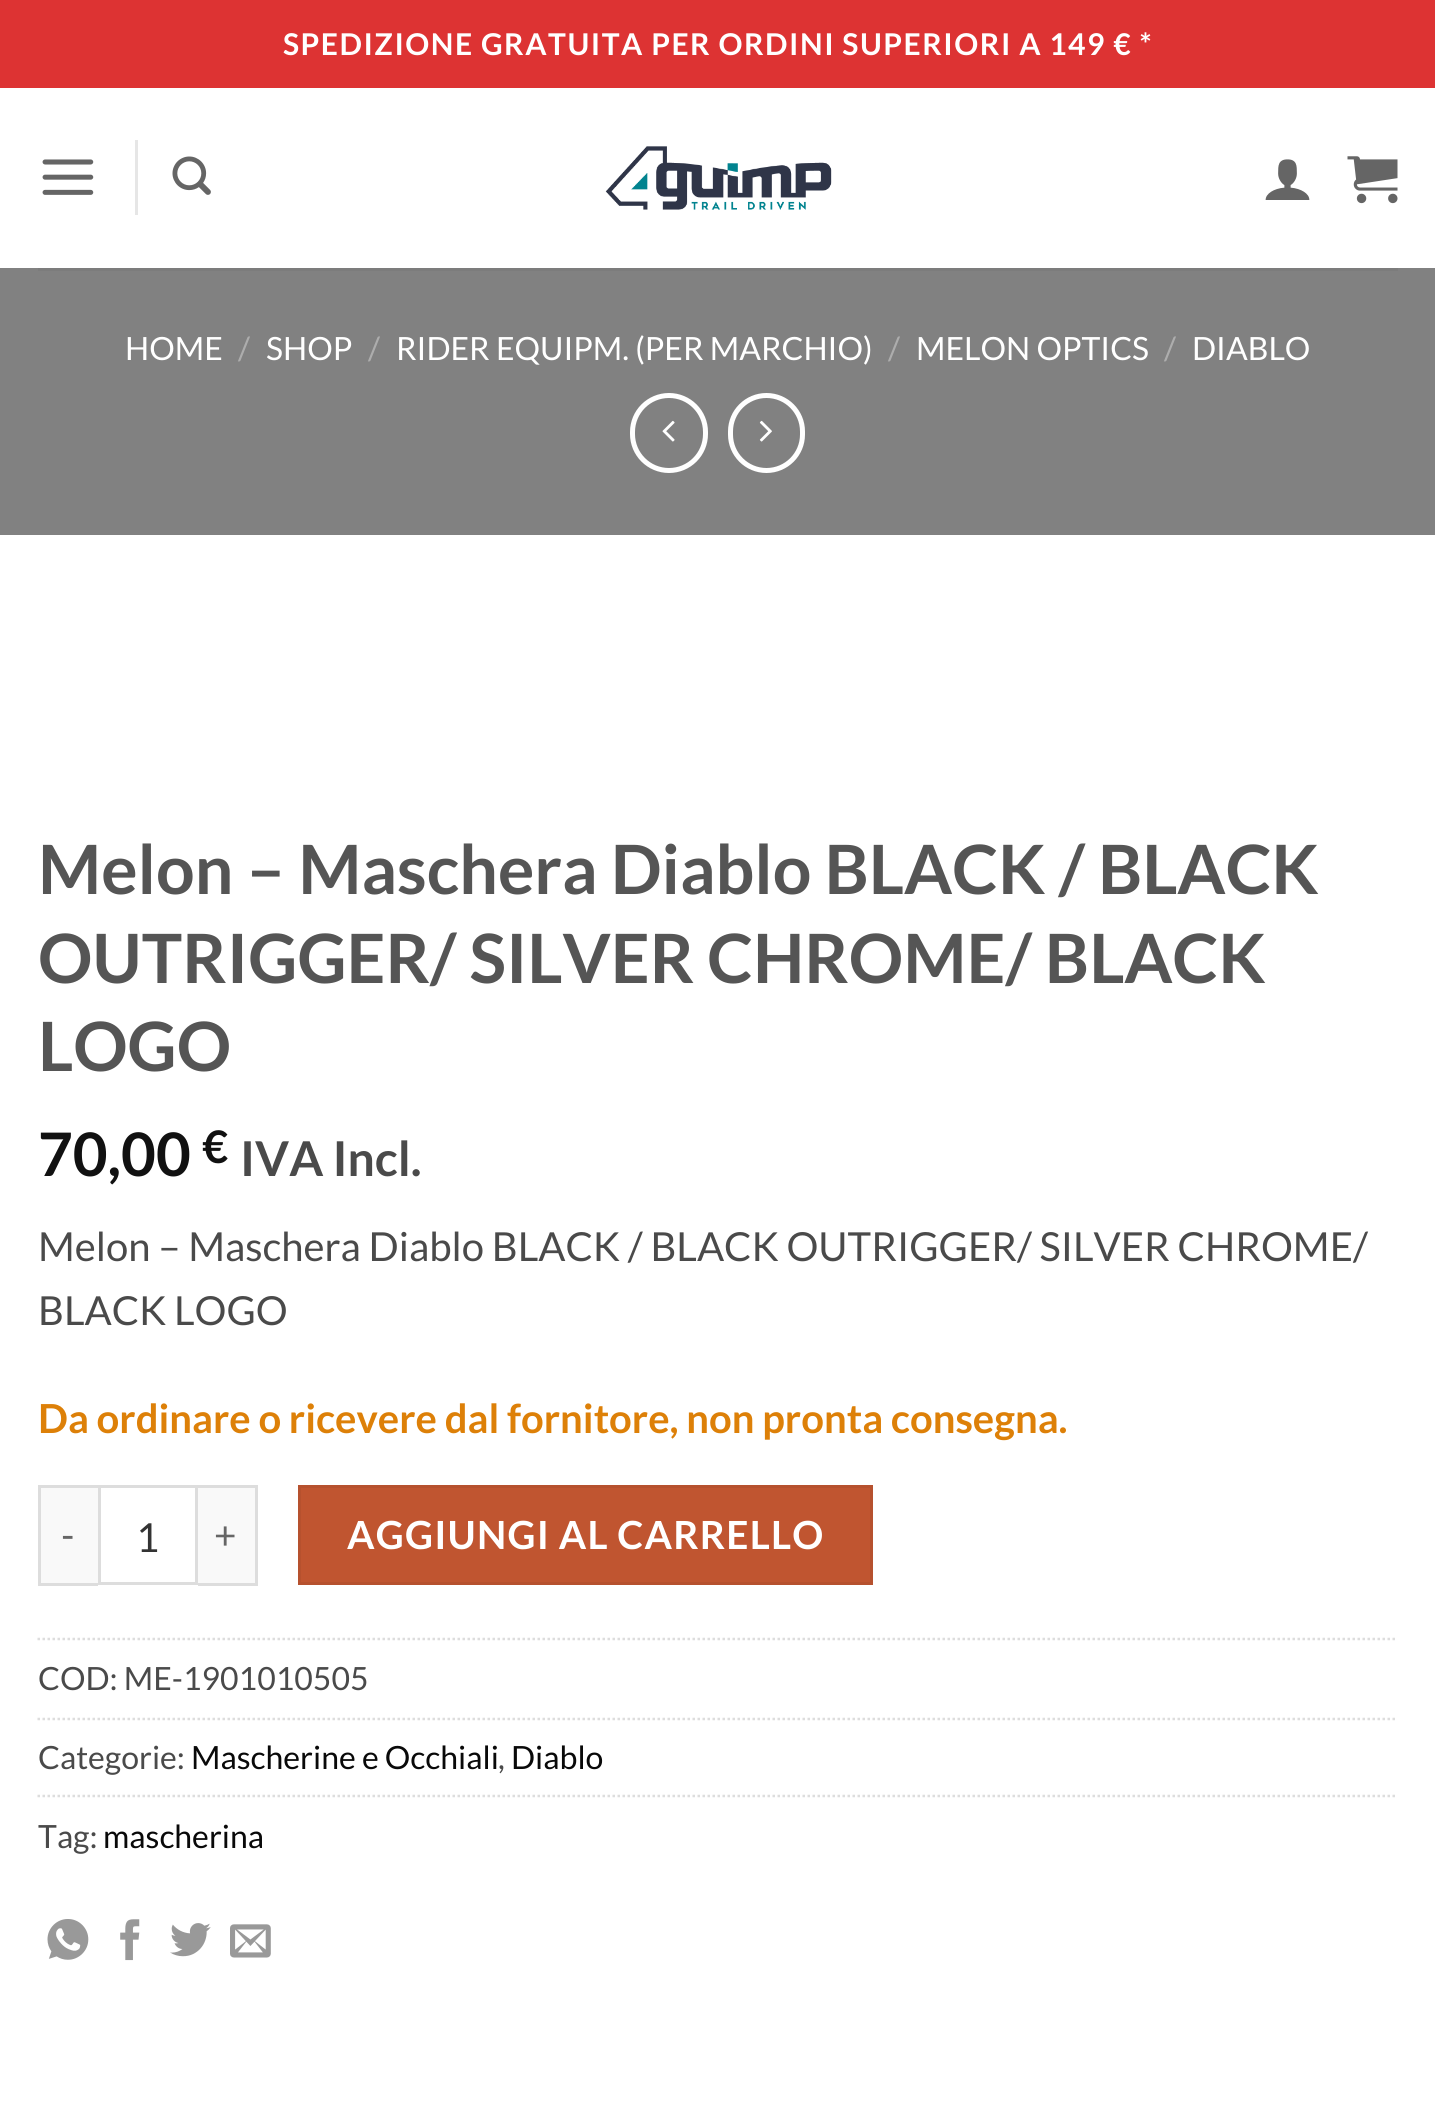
import math
import cairo



def draw_spaced(context, x, y, s, letter, word):
    context.move_to(x, y)
    for ch in s:
        context.show_text(ch)
        context.rel_move_to(letter + word * (ch == ' '), 0)


def rounded_rect(context, x, y, w, h, r):
    context.new_sub_path()
    for i, (u, v) in enumerate([(x + w - r, y + h - r), (x + r, y + h - r), (x + r, y + r), (x + w - r, y + r)]):
        context.arc(u, v, r, i * math.pi / 2, (i + 1) * math.pi / 2)
    context.close_path()


def draw_image(context, path, x, y, w, h):
    context.save()
    context.set_source_surface(cairo.ImageSurface.create_from_png(path), x, y)
    context.rectangle(x, y, w, h)
    context.fill()
    context.restore()


def draw(context):
    context.set_source_rgb(1, 1, 1)
    context.paint()
    context.set_source_rgb(221 / 255, 51 / 255, 51 / 255)
    context.rectangle(0, 0, 1435, 88)
    context.fill()
    draw_image(context, "images/1.png", 42, 159, 52, 36)
    context.set_source_rgb(230 / 255, 230 / 255, 230 / 255)
    context.rectangle(135, 140, 3, 75)
    context.fill()
    draw_image(context, "images/2.png", 172, 156, 39, 39)
    draw_image(context, "images/3.png", 605, 146, 227, 64)
    draw_image(context, "images/4.png", 1265, 159, 45, 41)
    draw_image(context, "images/5.png", 1347, 156, 51, 48)
    context.set_source_rgb(129 / 255, 129 / 255, 129 / 255)
    context.rectangle(0, 268, 1435, 267)
    context.fill()
    context.set_source_rgb(124 / 255, 124 / 255, 124 / 255)
    context.rectangle(38, 268, 1360, 3)
    context.fill()
    rounded_rect(context, 632.5, 395.5, 73, 75, 36.5)
    context.set_source_rgb(1, 1, 1)
    context.set_line_width(5)
    context.stroke()
    draw_image(context, "images/6.png", 662, 420, 13, 22)
    rounded_rect(context, 730.5, 395.5, 72, 75, 36)
    context.stroke()
    draw_image(context, "images/7.png", 759, 420, 13, 22)
    context.set_source_rgb(249 / 255, 249 / 255, 249 / 255)
    context.rectangle(41, 1488, 57, 95)
    context.fill()
    context.set_source_rgb(221 / 255, 221 / 255, 221 / 255)
    context.rectangle(38, 1485, 60, 3)
    context.fill()
    context.rectangle(38, 1583, 60, 3)
    context.fill()
    context.rectangle(38, 1485, 3, 100)
    context.fill()
    context.rectangle(99.5, 1486.5, 97, 97)
    context.set_line_width(3)
    context.stroke()
    context.set_source_rgb(249 / 255, 249 / 255, 249 / 255)
    context.rectangle(198, 1488, 57, 95)
    context.fill()
    context.set_source_rgb(221 / 255, 221 / 255, 221 / 255)
    context.rectangle(198, 1485, 60, 3)
    context.fill()
    context.rectangle(255, 1485, 3, 100)
    context.fill()
    context.rectangle(198, 1583, 60, 3)
    context.fill()
    context.set_source_rgb(192 / 255, 85 / 255, 48 / 255)
    context.rectangle(299.5, 1486.5, 572, 97)
    context.fill_preserve()
    context.set_source_rgb(182 / 255, 81 / 255, 46 / 255)
    context.stroke()
    context.new_path()
    context.move_to(37.5, 1639)
    context.line_to(1397.5, 1639)
    context.set_source_rgb(221 / 255, 221 / 255, 221 / 255)
    context.set_line_width(2.5)
    context.set_dash([2.5, 2.5])
    context.stroke()
    context.new_path()
    context.move_to(37.5, 1719)
    context.line_to(1397.5, 1719)
    context.stroke()
    context.new_path()
    context.move_to(37.5, 1796)
    context.line_to(1397.5, 1796)
    context.stroke()
    draw_image(context, "images/8.png", 47, 1919, 42, 41)
    draw_image(context, "images/9.png", 120, 1919, 20, 42)
    draw_image(context, "images/10.png", 170, 1923, 41, 34)
    draw_image(context, "images/11.png", 230, 1924, 41, 34)
    context.select_font_face("Lato", cairo.FontSlant.NORMAL, cairo.FontWeight.BOLD)
    context.set_font_size(30)
    context.set_source_rgb(1, 1, 1)
    draw_spaced(context, 283, 55, "SPEDIZIONE GRATUITA PER ORDINI SUPERIORI A 149 € *", 1.5, 0)
    context.select_font_face("Lato")
    context.set_font_size(32)
    context.move_to(125, 360)
    context.show_text("HOME")
    context.set_source_rgb(173 / 255, 173 / 255, 173 / 255)
    context.move_to(238, 360)
    context.show_text("/")
    context.set_source_rgb(1, 1, 1)
    context.move_to(266, 360)
    context.show_text("SHOP")
    context.set_source_rgb(173 / 255, 173 / 255, 173 / 255)
    context.move_to(368, 360)
    context.show_text("/")
    context.set_source_rgb(1, 1, 1)
    context.move_to(396, 360)
    context.show_text("RIDER EQUIPM. (PER MARCHIO)")
    context.set_source_rgb(173 / 255, 173 / 255, 173 / 255)
    context.move_to(888, 360)
    context.show_text("/")
    context.set_source_rgb(1, 1, 1)
    context.move_to(916, 360)
    context.show_text("MELON OPTICS")
    context.set_source_rgb(173 / 255, 173 / 255, 173 / 255)
    context.move_to(1164, 360)
    context.show_text("/")
    context.set_source_rgb(1, 1, 1)
    context.move_to(1192, 360)
    context.show_text("DIABLO")
    context.select_font_face("Lato", cairo.FontSlant.NORMAL, cairo.FontWeight.BOLD)
    context.set_font_size(68)
    context.set_source_rgb(85 / 255, 85 / 255, 85 / 255)
    context.move_to(38, 894)
    context.show_text("Melon – Maschera Diablo BLACK / BLACK")
    context.move_to(38, 983)
    context.show_text("OUTRIGGER/ SILVER CHROME/ BLACK")
    context.move_to(38, 1071)
    context.show_text("LOGO")
    context.set_font_size(60)
    context.set_source_rgb(17 / 255, 17 / 255, 17 / 255)
    context.move_to(38, 1176)
    context.show_text("70,00")
    context.set_font_size(45)
    context.move_to(202, 1163)
    context.show_text("€")
    context.set_font_size(48)
    context.set_source_rgb(74 / 255, 74 / 255, 74 / 255)
    context.move_to(240, 1176)
    context.show_text("IVA Incl.")
    context.select_font_face("Lato")
    context.set_font_size(40)
    context.move_to(38, 1261)
    context.show_text("Melon – Maschera Diablo BLACK / BLACK OUTRIGGER/ SILVER CHROME/")
    context.move_to(38, 1325)
    context.show_text("BLACK LOGO")
    context.select_font_face("Lato", cairo.FontSlant.NORMAL, cairo.FontWeight.BOLD)
    context.set_source_rgb(221 / 255, 128 / 255, 8 / 255)
    context.move_to(38, 1433)
    context.show_text("Da ordinare o ricevere dal fornitore, non pronta consegna.")
    context.select_font_face("Lato")
    context.set_font_size(38.75)
    context.set_source_rgb(102 / 255, 102 / 255, 102 / 255)
    draw_spaced(context, 61, 1549, "-", 1.2, 0)
    context.set_font_size(40)
    context.set_source_rgb(51 / 255, 51 / 255, 51 / 255)
    context.move_to(136, 1552)
    context.show_text("1")
    context.set_font_size(38.75)
    context.set_source_rgb(102 / 255, 102 / 255, 102 / 255)
    draw_spaced(context, 214, 1549, "+", 1.2, 0)
    context.select_font_face("Lato", cairo.FontSlant.NORMAL, cairo.FontWeight.BOLD)
    context.set_source_rgb(1, 1, 1)
    draw_spaced(context, 347, 1549, "AGGIUNGI AL CARRELLO", 1.2, 0)
    context.select_font_face("Lato")
    context.set_font_size(32)
    context.set_source_rgb(74 / 255, 74 / 255, 74 / 255)
    context.move_to(38, 1690)
    context.show_text("COD: ME-1901010505")
    context.move_to(38, 1769)
    context.show_text("Categorie:")
    context.set_source_rgb(9 / 255, 9 / 255, 9 / 255)
    context.move_to(191, 1769)
    context.show_text("Mascherine e Occhiali")
    context.set_source_rgb(74 / 255, 74 / 255, 74 / 255)
    context.move_to(498, 1769)
    context.show_text(",")
    context.set_source_rgb(9 / 255, 9 / 255, 9 / 255)
    context.move_to(511, 1769)
    context.show_text("Diablo")
    context.set_source_rgb(74 / 255, 74 / 255, 74 / 255)
    context.move_to(38, 1848)
    context.show_text("Tag:")
    context.set_source_rgb(9 / 255, 9 / 255, 9 / 255)
    context.move_to(103, 1848)
    context.show_text("mascherina")


surface = cairo.ImageSurface(cairo.Format.RGB24, 1435, 2117)
context = cairo.Context(surface)
options = cairo.FontOptions()
options.set_hint_metrics(cairo.HintMetrics.OFF)
options.set_hint_style(cairo.HintStyle.NONE)
context.set_font_options(options)
context.set_miter_limit(4)
draw(context)
surface.write_to_png("out.png")
